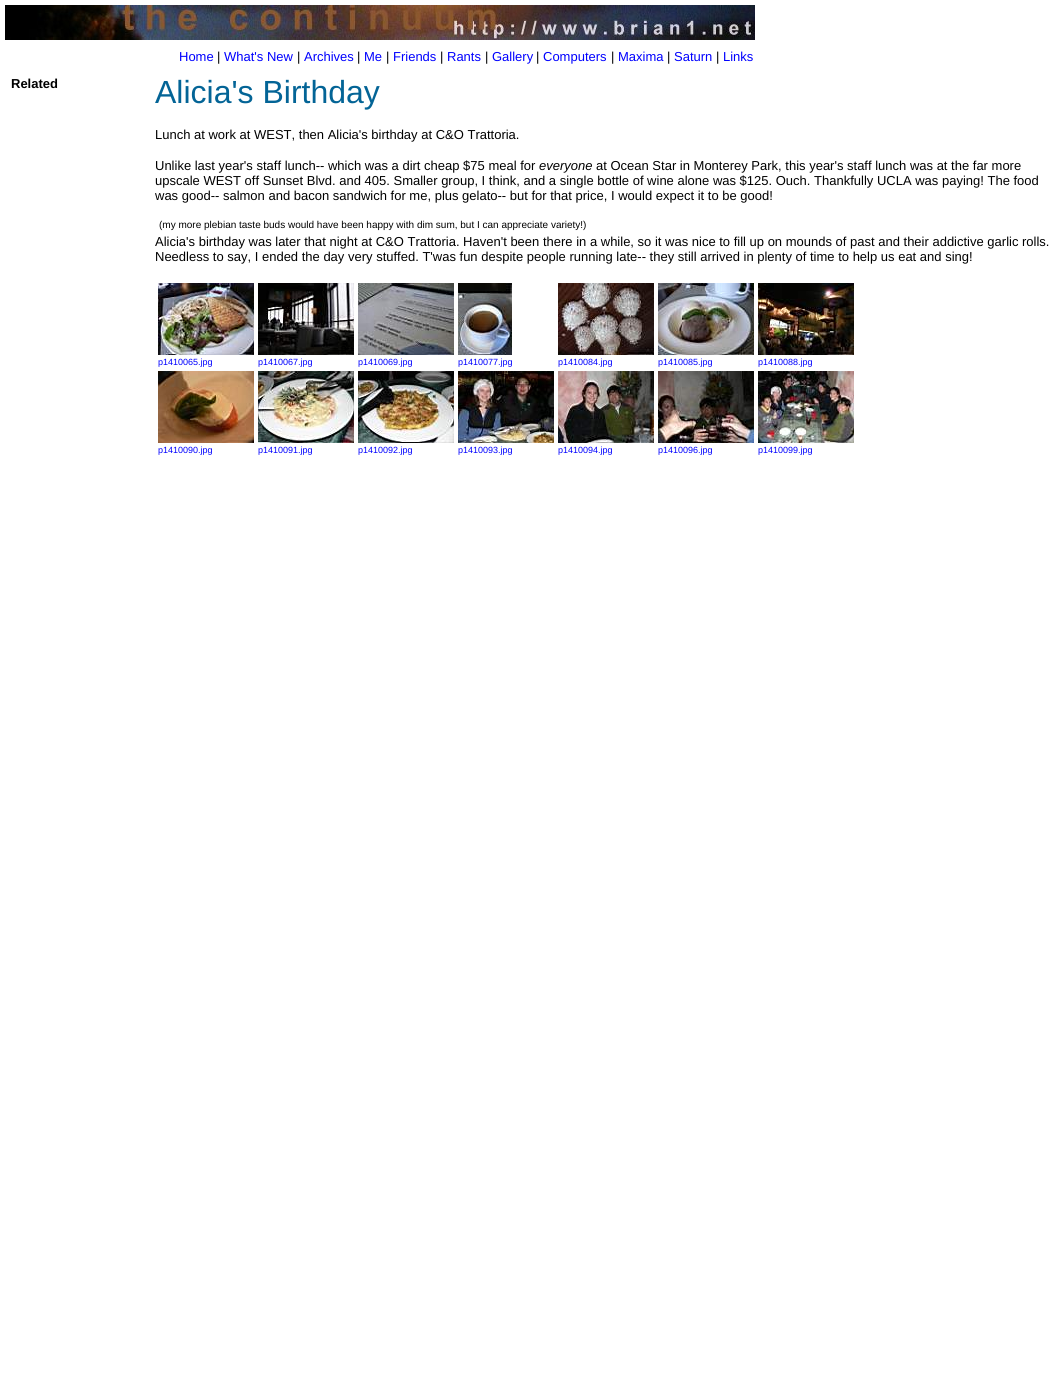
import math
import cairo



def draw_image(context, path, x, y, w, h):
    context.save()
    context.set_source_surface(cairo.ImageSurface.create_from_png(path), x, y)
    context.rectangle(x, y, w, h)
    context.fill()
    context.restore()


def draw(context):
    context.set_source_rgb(1, 1, 1)
    context.paint()
    draw_image(context, "images/1.png", 5, 5, 750, 35)
    draw_image(context, "images/2.png", 158, 283, 96, 72)
    draw_image(context, "images/3.png", 258, 283, 96, 72)
    draw_image(context, "images/4.png", 358, 283, 96, 72)
    draw_image(context, "images/5.png", 458, 283, 54, 72)
    draw_image(context, "images/6.png", 558, 283, 96, 72)
    draw_image(context, "images/7.png", 658, 283, 96, 72)
    draw_image(context, "images/8.png", 758, 283, 96, 72)
    draw_image(context, "images/9.png", 158, 371, 96, 72)
    draw_image(context, "images/10.png", 258, 371, 96, 72)
    draw_image(context, "images/11.png", 358, 371, 96, 72)
    draw_image(context, "images/12.png", 458, 371, 96, 72)
    draw_image(context, "images/13.png", 558, 371, 96, 72)
    draw_image(context, "images/14.png", 658, 371, 96, 72)
    draw_image(context, "images/15.png", 758, 371, 96, 72)
    context.select_font_face("Liberation Sans")
    context.set_font_size(13)
    context.set_source_rgb(0, 0, 1)
    context.move_to(179, 61)
    context.show_text("Home")
    context.set_source_rgb(0, 0, 0)
    context.move_to(217, 61)
    context.show_text("|")
    context.set_source_rgb(0, 0, 1)
    context.move_to(224, 61)
    context.show_text("What's New")
    context.set_source_rgb(0, 0, 0)
    context.move_to(297, 61)
    context.show_text("|")
    context.set_source_rgb(0, 0, 1)
    context.move_to(304, 61)
    context.show_text("Archives")
    context.set_source_rgb(0, 0, 0)
    context.move_to(357, 61)
    context.show_text("|")
    context.set_source_rgb(0, 0, 1)
    context.move_to(364, 61)
    context.show_text("Me")
    context.set_source_rgb(0, 0, 0)
    context.move_to(386, 61)
    context.show_text("|")
    context.set_source_rgb(0, 0, 1)
    context.move_to(393, 61)
    context.show_text("Friends")
    context.set_source_rgb(0, 0, 0)
    context.move_to(440, 61)
    context.show_text("|")
    context.set_source_rgb(0, 0, 1)
    context.move_to(447, 61)
    context.show_text("Rants")
    context.set_source_rgb(0, 0, 0)
    context.move_to(485, 61)
    context.show_text("|")
    context.set_source_rgb(0, 0, 1)
    context.move_to(492, 61)
    context.show_text("Gallery")
    context.set_source_rgb(0, 0, 0)
    context.move_to(536, 61)
    context.show_text("|")
    context.set_source_rgb(0, 0, 1)
    context.move_to(543, 61)
    context.show_text("Computers")
    context.set_source_rgb(0, 0, 0)
    context.move_to(611, 61)
    context.show_text("|")
    context.set_source_rgb(0, 0, 1)
    context.move_to(618, 61)
    context.show_text("Maxima")
    context.set_source_rgb(0, 0, 0)
    context.move_to(667, 61)
    context.show_text("|")
    context.set_source_rgb(0, 0, 1)
    context.move_to(674, 61)
    context.show_text("Saturn")
    context.set_source_rgb(0, 0, 0)
    context.move_to(716, 61)
    context.show_text("|")
    context.set_source_rgb(0, 0, 1)
    context.move_to(723, 61)
    context.show_text("Links")
    context.select_font_face("Liberation Sans", cairo.FontSlant.NORMAL, cairo.FontWeight.BOLD)
    context.set_source_rgb(0, 0, 0)
    context.move_to(11, 88)
    context.show_text("Related")
    context.select_font_face("Liberation Sans")
    context.set_font_size(32)
    context.set_source_rgb(3 / 255, 100 / 255, 150 / 255)
    context.move_to(155, 103)
    context.show_text("Alicia's Birthday")
    context.set_font_size(13)
    context.set_source_rgb(0, 0, 0)
    context.move_to(155, 139)
    context.show_text("Lunch at work at WEST, then Alicia's birthday at C&O Trattoria.")
    context.move_to(155, 170)
    context.show_text("Unlike last year's staff lunch-- which was a dirt cheap $75 meal for")
    context.select_font_face("Liberation Sans", cairo.FontSlant.ITALIC)
    context.move_to(539, 170)
    context.show_text("everyone")
    context.select_font_face("Liberation Sans")
    context.move_to(596, 170)
    context.show_text("at Ocean Star in Monterey Park, this year's staff lunch was at the far more")
    context.move_to(155, 185)
    context.show_text("upscale WEST off Sunset Blvd. and 405. Smaller group, I think, and a single bottle of wine alone was $125. Ouch. Thankfully UCLA was paying! The food")
    context.move_to(155, 200)
    context.show_text("was good-- salmon and bacon sandwich for me, plus gelato-- but for that price, I would expect it to be good!")
    context.set_font_size(10)
    context.move_to(159, 228)
    context.show_text("(my more plebian taste buds would have been happy with dim sum, but I can appreciate variety!)")
    context.set_font_size(13)
    context.move_to(155, 246)
    context.show_text("Alicia's birthday was later that night at C&O Trattoria. Haven't been there in a while, so it was nice to fill up on mounds of past and their addictive garlic rolls.")
    context.move_to(155, 261)
    context.show_text("Needless to say, I ended the day very stuffed. T'was fun despite people running late-- they still arrived in plenty of time to help us eat and sing!")
    context.set_font_size(9)
    context.set_source_rgb(0, 0, 1)
    context.move_to(158, 365)
    context.show_text("p1410065.jpg")
    context.move_to(258, 365)
    context.show_text("p1410067.jpg")
    context.move_to(358, 365)
    context.show_text("p1410069.jpg")
    context.move_to(458, 365)
    context.show_text("p1410077.jpg")
    context.move_to(558, 365)
    context.show_text("p1410084.jpg")
    context.move_to(658, 365)
    context.show_text("p1410085.jpg")
    context.move_to(758, 365)
    context.show_text("p1410088.jpg")
    context.move_to(158, 453)
    context.show_text("p1410090.jpg")
    context.move_to(258, 453)
    context.show_text("p1410091.jpg")
    context.move_to(358, 453)
    context.show_text("p1410092.jpg")
    context.move_to(458, 453)
    context.show_text("p1410093.jpg")
    context.move_to(558, 453)
    context.show_text("p1410094.jpg")
    context.move_to(658, 453)
    context.show_text("p1410096.jpg")
    context.move_to(758, 453)
    context.show_text("p1410099.jpg")


surface = cairo.ImageSurface(cairo.Format.RGB24, 1061, 1379)
context = cairo.Context(surface)
options = cairo.FontOptions()
options.set_hint_metrics(cairo.HintMetrics.OFF)
options.set_hint_style(cairo.HintStyle.NONE)
context.set_font_options(options)
context.set_miter_limit(4)
draw(context)
surface.write_to_png("out.png")
